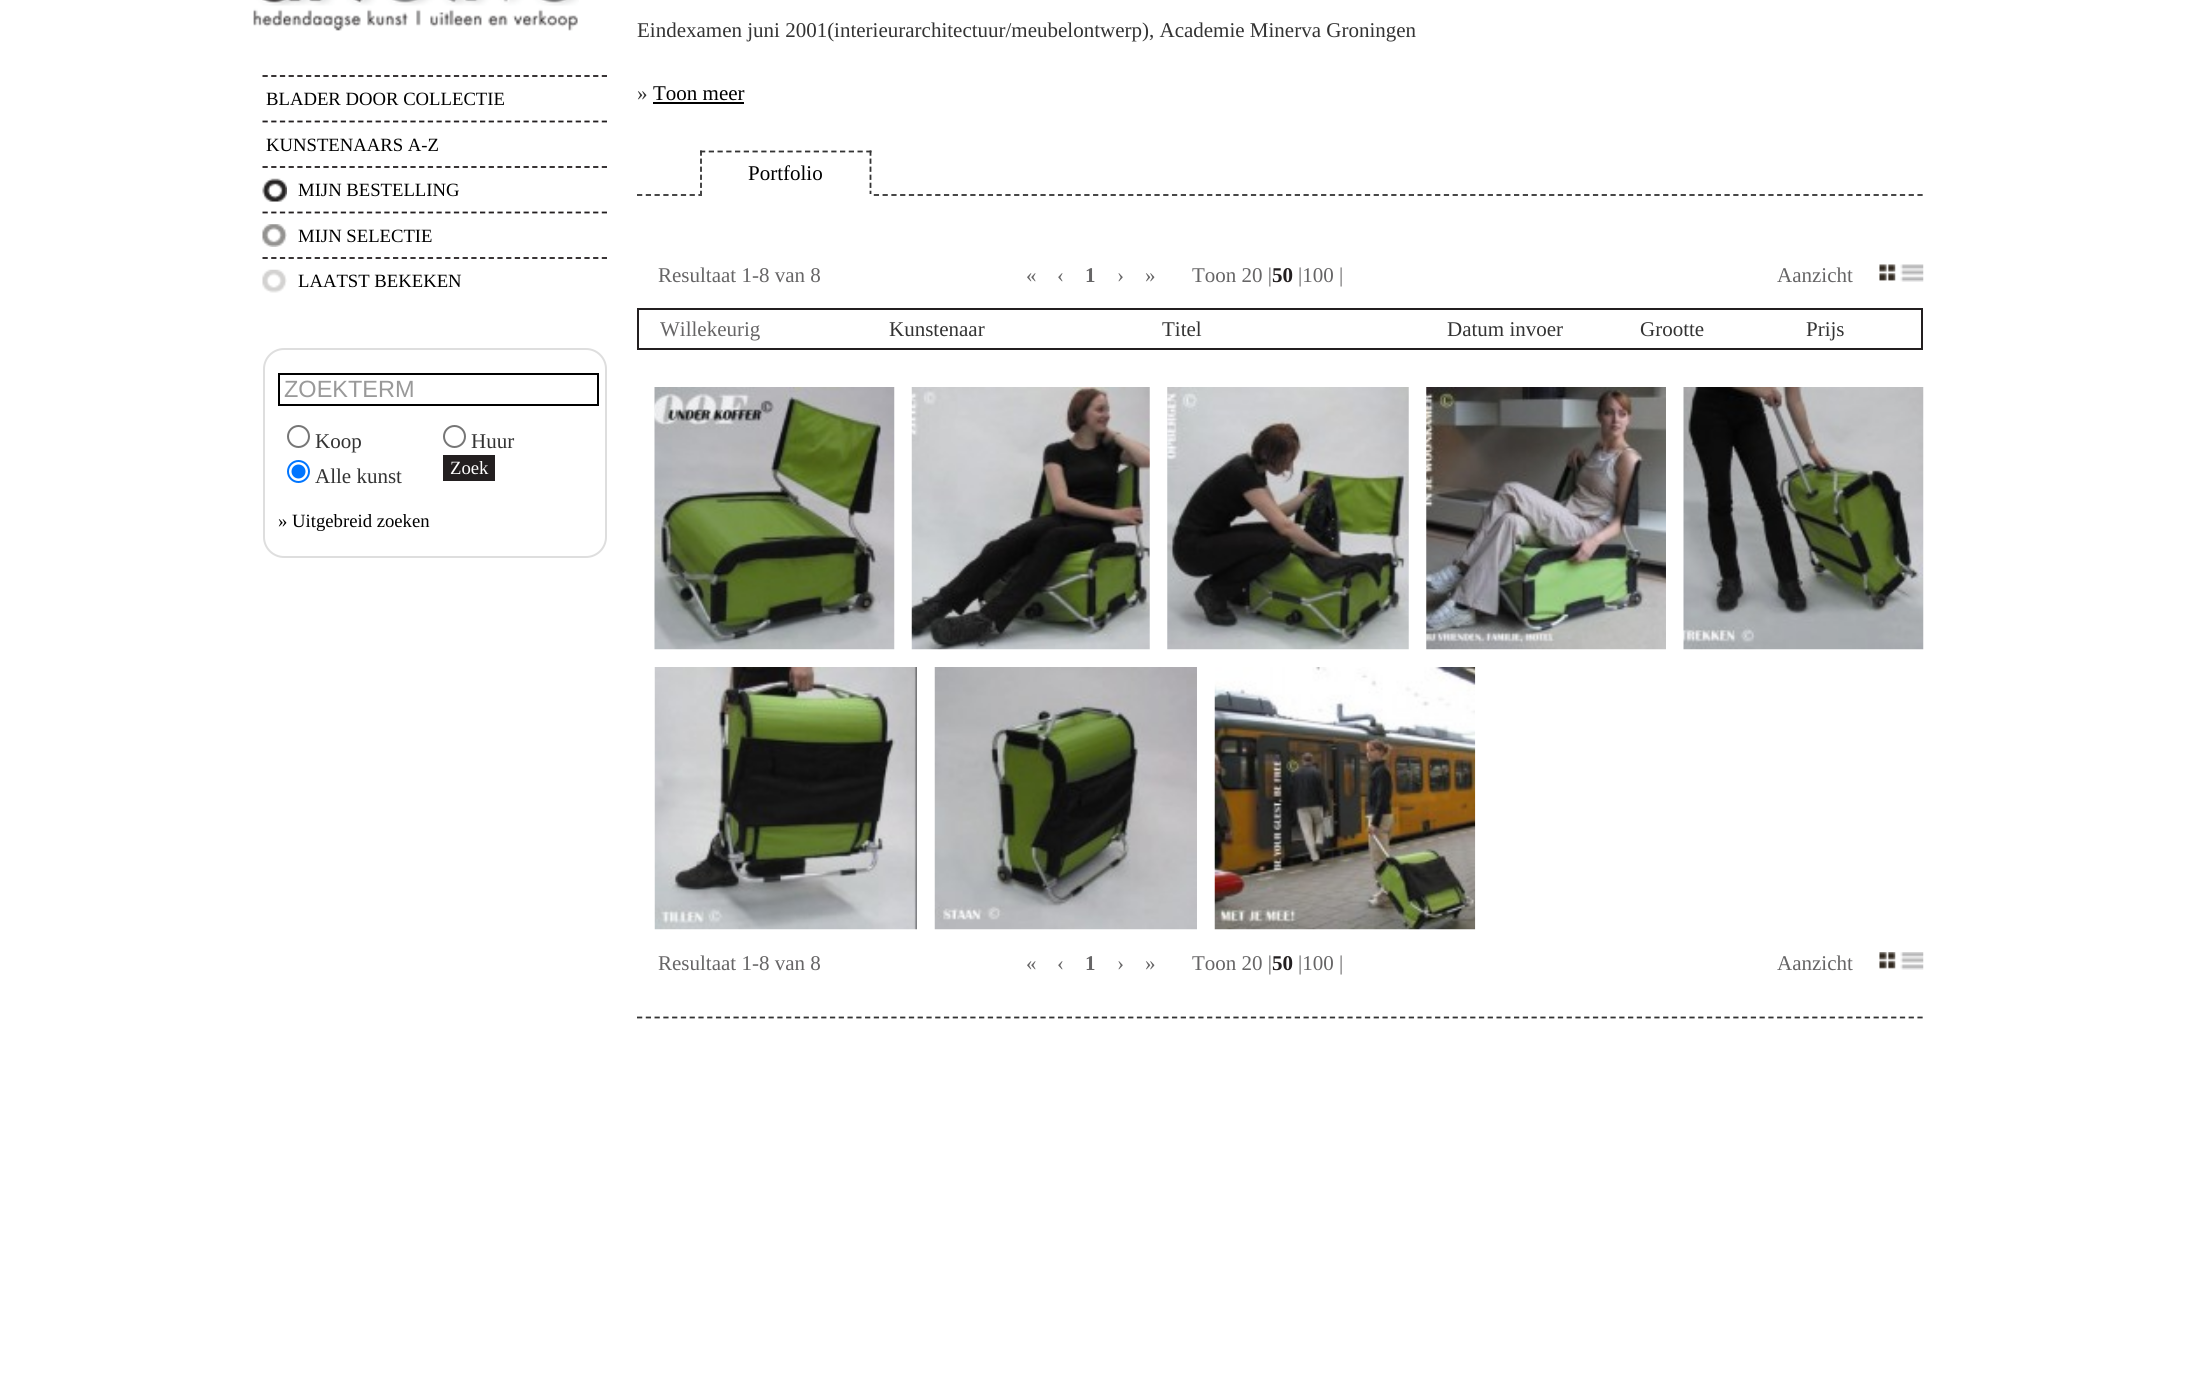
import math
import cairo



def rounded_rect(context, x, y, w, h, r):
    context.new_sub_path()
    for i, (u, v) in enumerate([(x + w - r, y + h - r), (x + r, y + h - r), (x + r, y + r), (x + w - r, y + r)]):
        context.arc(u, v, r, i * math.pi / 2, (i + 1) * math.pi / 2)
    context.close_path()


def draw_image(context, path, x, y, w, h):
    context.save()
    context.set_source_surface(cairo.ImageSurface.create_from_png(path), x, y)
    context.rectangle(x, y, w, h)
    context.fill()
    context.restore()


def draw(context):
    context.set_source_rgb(1, 1, 1)
    context.paint()
    draw_image(context, "images/1.png", 253, 0, 326, 31)
    context.new_path()
    context.move_to(262.5, 76)
    context.line_to(607, 76)
    context.set_source_rgb(35 / 255, 31 / 255, 32 / 255)
    context.set_line_width(1.8)
    context.set_dash([5.25, 3.45])
    context.stroke()
    context.new_path()
    context.move_to(262.5, 121.5)
    context.line_to(607, 121.5)
    context.stroke()
    draw_image(context, "images/2.png", 262, 178, 25, 24)
    context.new_path()
    context.move_to(262.5, 167)
    context.line_to(607, 167)
    context.stroke()
    draw_image(context, "images/3.png", 262, 224, 25, 23)
    context.new_path()
    context.move_to(262.5, 212.5)
    context.line_to(607, 212.5)
    context.stroke()
    draw_image(context, "images/4.png", 262, 269, 25, 24)
    context.new_path()
    context.move_to(262.5, 258)
    context.line_to(607, 258)
    context.stroke()
    rounded_rect(context, 264, 349, 342, 208, 20)
    context.set_source_rgb(222 / 255, 222 / 255, 222 / 255)
    context.set_line_width(2)
    context.set_dash([])
    context.stroke()
    context.rectangle(279, 374, 319, 31)
    context.set_source_rgb(0, 0, 0)
    context.stroke()
    context.arc(298.5, 436.5, 10.5, 0, 2 * math.pi)
    context.set_source_rgb(118 / 255, 118 / 255, 118 / 255)
    context.stroke()
    context.arc(454.5, 436.5, 10.5, 0, 2 * math.pi)
    context.stroke()
    context.arc(298.5, 471.5, 10.5, 0, 2 * math.pi)
    context.set_source_rgb(0, 117 / 255, 1)
    context.stroke()
    context.arc(298.5, 471.5, 7, 0, 2 * math.pi)
    context.fill()
    context.set_source_rgb(35 / 255, 31 / 255, 32 / 255)
    context.rectangle(443, 455, 52, 26)
    context.fill()
    context.set_source_rgb(0, 0, 0)
    context.rectangle(653, 102, 91, 2)
    context.fill()
    context.new_path()
    context.move_to(637, 1017.5)
    context.line_to(1923, 1017.5)
    context.set_source_rgb(51 / 255, 51 / 255, 51 / 255)
    context.set_line_width(1.8)
    context.set_dash([5.25, 3.52])
    context.stroke()
    context.new_path()
    context.move_to(637, 195)
    context.line_to(1923, 195)
    context.stroke()
    context.new_path()
    context.move_to(700, 151.5)
    context.line_to(871.5, 151.5)
    context.set_dash([5.25, 3.5])
    context.stroke()
    context.new_path()
    context.move_to(870.5, 150.5)
    context.line_to(870.5, 196)
    context.set_dash([5.25, 2.8])
    context.stroke()
    context.set_source_rgb(1, 1, 1)
    context.rectangle(700, 194, 172, 2)
    context.fill()
    context.new_path()
    context.move_to(701, 150.5)
    context.line_to(701, 196)
    context.set_source_rgb(51 / 255, 51 / 255, 51 / 255)
    context.stroke()
    draw_image(context, "images/5.png", 1879, 264, 17, 17)
    draw_image(context, "images/6.png", 1900, 264, 24, 18)
    context.rectangle(638, 309, 1284, 40)
    context.set_source_rgb(35 / 255, 31 / 255, 32 / 255)
    context.set_line_width(2)
    context.set_dash([])
    context.stroke()
    draw_image(context, "images/7.png", 654, 387, 241, 263)
    draw_image(context, "images/8.png", 911, 387, 239, 263)
    draw_image(context, "images/9.png", 1167, 387, 242, 263)
    draw_image(context, "images/10.png", 1426, 387, 240, 263)
    draw_image(context, "images/11.png", 1683, 387, 241, 263)
    draw_image(context, "images/12.png", 654, 667, 263, 263)
    draw_image(context, "images/13.png", 934, 667, 263, 263)
    draw_image(context, "images/14.png", 1214, 667, 262, 263)
    draw_image(context, "images/15.png", 1879, 952, 17, 17)
    draw_image(context, "images/16.png", 1900, 952, 24, 18)
    context.select_font_face("Liberation Serif")
    context.set_font_size(18.7)
    context.set_source_rgb(0, 0, 0)
    context.move_to(266, 105)
    context.show_text("BLADER DOOR COLLECTIE")
    context.move_to(266, 151)
    context.show_text("KUNSTENAARS A-Z")
    context.move_to(298, 196)
    context.show_text("MIJN BESTELLING")
    context.move_to(298, 242)
    context.show_text("MIJN SELECTIE")
    context.move_to(298, 287)
    context.show_text("LAATST BEKEKEN")
    context.select_font_face("Liberation Sans")
    context.set_font_size(23.5)
    context.set_source_rgb(153 / 255, 153 / 255, 153 / 255)
    context.move_to(284, 397)
    context.show_text("ZOEKTERM")
    context.select_font_face("Liberation Serif")
    context.set_font_size(21)
    context.set_source_rgb(51 / 255, 51 / 255, 51 / 255)
    context.move_to(315, 448)
    context.show_text("Koop")
    context.move_to(471, 448)
    context.show_text("Huur")
    context.move_to(315, 483)
    context.show_text("Alle kunst")
    context.set_font_size(18.7)
    context.set_source_rgb(1, 1, 1)
    context.move_to(450, 474)
    context.show_text("Zoek")
    context.set_source_rgb(0, 0, 0)
    context.move_to(278, 527)
    context.show_text("» Uitgebreid zoeken")
    context.set_font_size(21)
    context.set_source_rgb(51 / 255, 51 / 255, 51 / 255)
    context.move_to(637, 37)
    context.show_text("Eindexamen juni 2001(interieurarchitectuur/meubelontwerp), Academie Minerva Groningen")
    context.move_to(637, 100)
    context.show_text("»")
    context.set_source_rgb(0, 0, 0)
    context.move_to(653, 100)
    context.show_text("Toon meer")
    context.move_to(748, 180)
    context.show_text("Portfolio")
    context.set_source_rgb(102 / 255, 101 / 255, 102 / 255)
    context.move_to(658, 282)
    context.show_text("Resultaat 1-8 van 8")
    context.move_to(1026, 282)
    context.show_text("«")
    context.move_to(1057, 282)
    context.show_text("‹")
    context.select_font_face("Liberation Serif", cairo.FontSlant.NORMAL, cairo.FontWeight.BOLD)
    context.move_to(1085, 282)
    context.show_text("1")
    context.select_font_face("Liberation Serif")
    context.move_to(1117, 282)
    context.show_text("›")
    context.move_to(1145, 282)
    context.show_text("»")
    context.move_to(1192, 282)
    context.show_text("Toon 20 |")
    context.select_font_face("Liberation Serif", cairo.FontSlant.NORMAL, cairo.FontWeight.BOLD)
    context.set_source_rgb(35 / 255, 31 / 255, 32 / 255)
    context.move_to(1272, 282)
    context.show_text("50")
    context.select_font_face("Liberation Serif")
    context.set_source_rgb(102 / 255, 101 / 255, 102 / 255)
    context.move_to(1298, 282)
    context.show_text("|100 |")
    context.move_to(1777, 282)
    context.show_text("Aanzicht")
    context.move_to(660, 336)
    context.show_text("Willekeurig")
    context.set_source_rgb(51 / 255, 51 / 255, 51 / 255)
    context.move_to(889, 336)
    context.show_text("Kunstenaar")
    context.move_to(1162, 336)
    context.show_text("Titel")
    context.move_to(1447, 336)
    context.show_text("Datum invoer")
    context.move_to(1640, 336)
    context.show_text("Grootte")
    context.move_to(1806, 336)
    context.show_text("Prijs")
    context.set_source_rgb(102 / 255, 101 / 255, 102 / 255)
    context.move_to(658, 970)
    context.show_text("Resultaat 1-8 van 8")
    context.move_to(1026, 970)
    context.show_text("«")
    context.move_to(1057, 970)
    context.show_text("‹")
    context.select_font_face("Liberation Serif", cairo.FontSlant.NORMAL, cairo.FontWeight.BOLD)
    context.move_to(1085, 970)
    context.show_text("1")
    context.select_font_face("Liberation Serif")
    context.move_to(1117, 970)
    context.show_text("›")
    context.move_to(1145, 970)
    context.show_text("»")
    context.move_to(1192, 970)
    context.show_text("Toon 20 |")
    context.select_font_face("Liberation Serif", cairo.FontSlant.NORMAL, cairo.FontWeight.BOLD)
    context.set_source_rgb(35 / 255, 31 / 255, 32 / 255)
    context.move_to(1272, 970)
    context.show_text("50")
    context.select_font_face("Liberation Serif")
    context.set_source_rgb(102 / 255, 101 / 255, 102 / 255)
    context.move_to(1298, 970)
    context.show_text("|100 |")
    context.move_to(1777, 970)
    context.show_text("Aanzicht")


surface = cairo.ImageSurface(cairo.Format.RGB24, 2211, 1384)
context = cairo.Context(surface)
options = cairo.FontOptions()
options.set_hint_metrics(cairo.HintMetrics.OFF)
options.set_hint_style(cairo.HintStyle.NONE)
context.set_font_options(options)
context.set_miter_limit(4)
draw(context)
surface.write_to_png("out.png")
